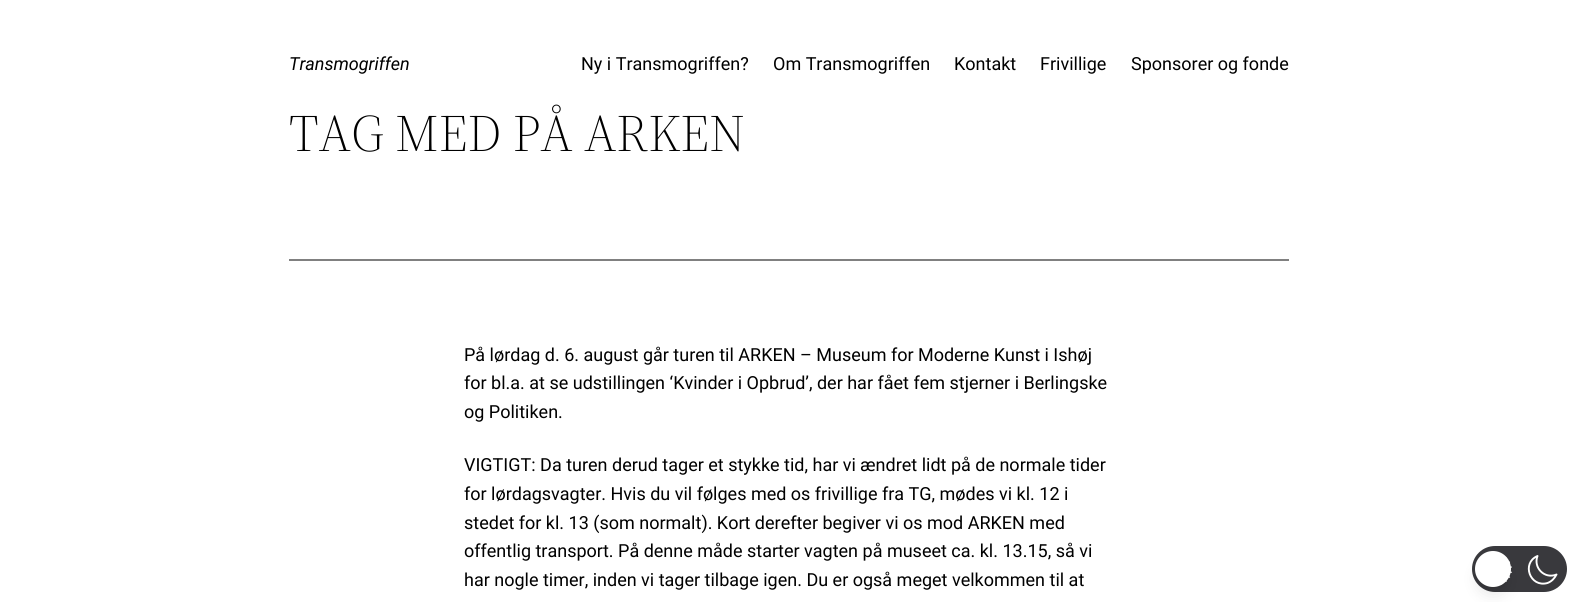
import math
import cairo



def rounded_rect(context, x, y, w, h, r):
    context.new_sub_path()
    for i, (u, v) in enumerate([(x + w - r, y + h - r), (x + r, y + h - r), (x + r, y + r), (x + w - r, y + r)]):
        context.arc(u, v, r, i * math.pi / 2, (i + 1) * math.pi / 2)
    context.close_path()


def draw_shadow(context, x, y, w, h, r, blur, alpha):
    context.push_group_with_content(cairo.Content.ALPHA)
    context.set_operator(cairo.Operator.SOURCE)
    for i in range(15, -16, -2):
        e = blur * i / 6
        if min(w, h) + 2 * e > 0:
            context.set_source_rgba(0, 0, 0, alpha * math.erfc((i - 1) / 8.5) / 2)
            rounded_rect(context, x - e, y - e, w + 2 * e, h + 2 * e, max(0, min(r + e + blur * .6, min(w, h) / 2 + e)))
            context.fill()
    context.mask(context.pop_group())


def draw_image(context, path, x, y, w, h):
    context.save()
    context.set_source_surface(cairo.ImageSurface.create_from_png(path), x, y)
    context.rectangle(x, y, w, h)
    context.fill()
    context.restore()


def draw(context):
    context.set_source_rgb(1, 1, 1)
    context.paint()
    context.set_source_rgb(128 / 255, 128 / 255, 128 / 255)
    context.rectangle(289, 259, 1000, 2)
    context.fill()
    context.set_source_rgb(57 / 255, 57 / 255, 61 / 255)
    rounded_rect(context, 1472, 546, 95, 46, 23)
    context.fill()
    draw_image(context, "images/1.png", 1501, 557, 11, 28)
    context.set_source_rgb(0, 0, 0)
    draw_shadow(context, 1479, 559, 28, 28, 14, 3, 0.1)
    context.new_path()
    context.move_to(1556.5, 574.5)
    context.curve_to(1544.5, 579.5, 1533, 567.5, 1537.5, 556)
    context.curve_to(1521, 563, 1530, 588, 1547.5, 583)
    context.curve_to(1551.5, 581.5, 1554.5, 578.5, 1556.5, 574.5)
    context.close_path()
    context.set_source_rgb(1, 1, 1)
    context.set_line_width(1.9)
    context.set_line_cap(cairo.LineCap.ROUND)
    context.set_line_join(cairo.LineJoin.ROUND)
    context.stroke()
    context.set_source_rgb(0, 0, 0)
    draw_shadow(context, 1478, 564, 30, 30, 15, 7.5, 0.1)
    context.set_source_rgb(1, 1, 1)
    context.arc(1493, 569, 18, 0, 2 * math.pi)
    context.fill()
    context.select_font_face("Roboto", cairo.FontSlant.ITALIC)
    context.set_font_size(18)
    context.set_source_rgb(0, 0, 0)
    context.move_to(289, 70)
    context.show_text("Transmogriffen")
    context.select_font_face("Roboto")
    context.move_to(581, 70)
    context.show_text("Ny i Transmogriffen?")
    context.move_to(773, 70)
    context.show_text("Om Transmogriffen")
    context.move_to(954, 70)
    context.show_text("Kontakt")
    context.move_to(1040, 70)
    context.show_text("Frivillige")
    context.move_to(1131, 70)
    context.show_text("Sponsorer og fonde")
    context.select_font_face("Source Serif 4 Light")
    context.set_font_size(52)
    context.move_to(289, 151)
    context.show_text("TAG MED PÅ ARKEN")
    context.select_font_face("Roboto")
    context.set_font_size(18)
    context.move_to(464, 361)
    context.show_text("På lørdag d. 6. august går turen til ARKEN – Museum for Moderne Kunst i Ishøj")
    context.move_to(464, 389)
    context.show_text("for bl.a. at se udstillingen ‘Kvinder i Opbrud’, der har fået fem stjerner i Berlingske")
    context.move_to(464, 418)
    context.show_text("og Politiken.")
    context.move_to(464, 471)
    context.show_text("VIGTIGT: Da turen derud tager et stykke tid, har vi ændret lidt på de normale tider")
    context.move_to(464, 500)
    context.show_text("for lørdagsvagter. Hvis du vil følges med os frivillige fra TG, mødes vi kl. 12 i")
    context.move_to(464, 529)
    context.show_text("stedet for kl. 13 (som normalt). Kort derefter begiver vi os mod ARKEN med")
    context.move_to(464, 557)
    context.show_text("offentlig transport. På denne måde starter vagten på museet ca. kl. 13.15, så vi")
    context.move_to(464, 586)
    context.show_text("har nogle timer, inden vi tager tilbage igen. Du er også meget velkommen til at")


surface = cairo.ImageSurface(cairo.Format.RGB24, 1577, 602)
context = cairo.Context(surface)
options = cairo.FontOptions()
options.set_hint_metrics(cairo.HintMetrics.OFF)
options.set_hint_style(cairo.HintStyle.NONE)
context.set_font_options(options)
context.set_miter_limit(4)
draw(context)
surface.write_to_png("out.png")
